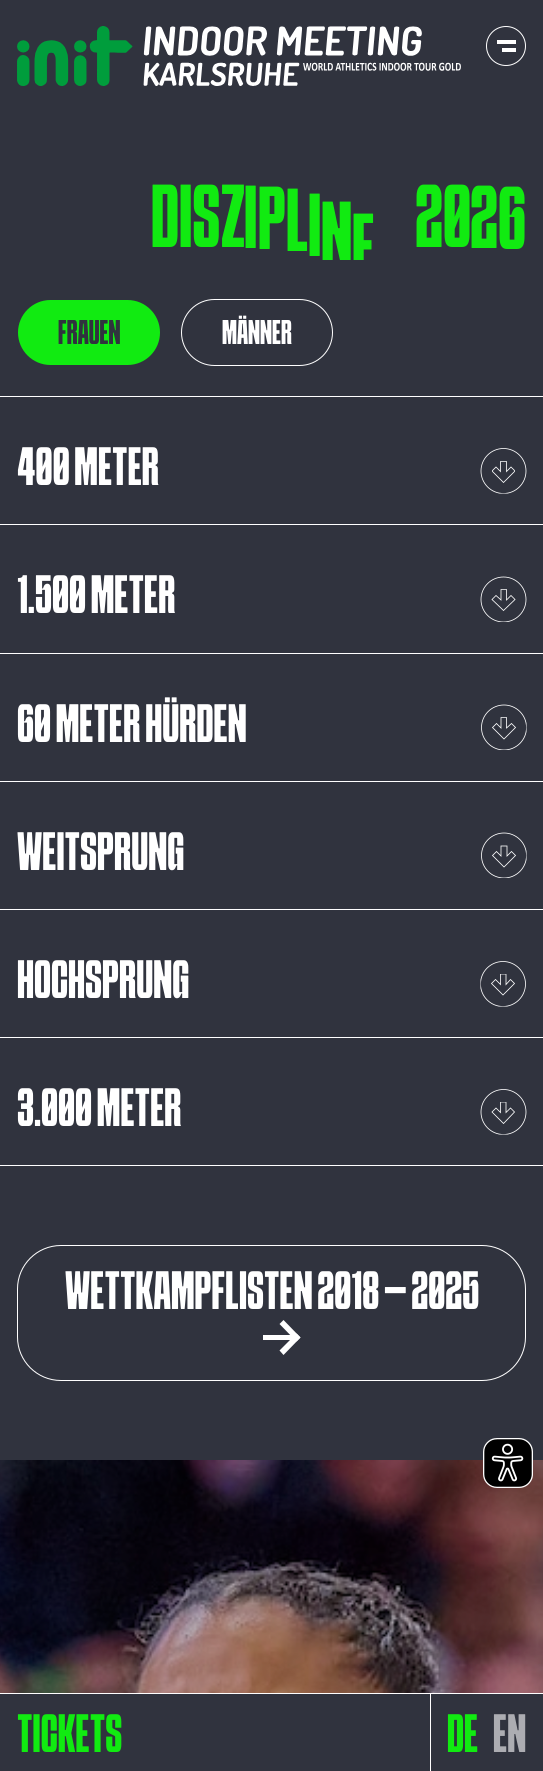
import math
import cairo



def rounded_rect(context, x, y, w, h, r):
    context.new_sub_path()
    for i, (u, v) in enumerate([(x + w - r, y + h - r), (x + r, y + h - r), (x + r, y + r), (x + w - r, y + r)]):
        context.arc(u, v, r, i * math.pi / 2, (i + 1) * math.pi / 2)
    context.close_path()


def draw_image(context, path, x, y, w, h):
    context.save()
    context.set_source_surface(cairo.ImageSurface.create_from_png(path), x, y)
    context.rectangle(x, y, w, h)
    context.fill()
    context.restore()


def draw(context):
    context.set_source_rgb(48 / 255, 51 / 255, 62 / 255)
    context.paint()
    draw_image(context, "images/1.png", 17, 26, 444, 60)
    context.arc(506, 46, 19.5, 0, 2 * math.pi)
    context.set_source_rgb(1, 1, 1)
    context.set_line_width(1)
    context.stroke()
    context.rectangle(497, 40, 19, 4)
    context.fill()
    context.rectangle(502, 48, 14, 4)
    context.fill()
    context.set_source_rgb(17 / 255, 235 / 255, 17 / 255)
    rounded_rect(context, 18, 300, 142, 65, 32.5)
    context.fill()
    rounded_rect(context, 181.5, 299.5, 151, 66, 33)
    context.set_source_rgb(1, 1, 1)
    context.stroke()
    context.rectangle(0, 396, 543, 1)
    context.fill()
    context.save()
    context.new_path()
    context.move_to(526.5, 448)
    context.line_to(526.5, 493.5)
    context.line_to(480.5, 493.5)
    context.line_to(480.5, 448)
    context.close_path()
    context.clip()
    context.arc(503.5, 471, 22.5, 0, 2 * math.pi)
    context.set_line_width(0.8)
    context.stroke()
    context.restore()
    context.save()
    context.rectangle(492, 461, 23, 22)
    context.clip()
    context.new_path()
    context.move_to(511, 467)
    context.line_to(506.5, 471.5)
    context.line_to(506.5, 461.5)
    context.line_to(500.5, 461.5)
    context.line_to(500.5, 471.5)
    context.line_to(496, 467)
    context.line_to(492, 471)
    context.line_to(503.5, 482.5)
    context.line_to(515, 471)
    context.close_path()
    context.set_line_width(0.8)
    context.stroke()
    context.restore()
    context.rectangle(0, 524, 543, 1)
    context.fill()
    context.save()
    context.new_path()
    context.move_to(526.5, 576)
    context.line_to(526.5, 622)
    context.line_to(480.5, 622)
    context.line_to(480.5, 576)
    context.close_path()
    context.clip()
    context.arc(503.5, 599.5, 22.5, 0, 2 * math.pi)
    context.set_line_width(0.8)
    context.stroke()
    context.restore()
    context.new_path()
    context.move_to(511, 595.5)
    context.line_to(506.5, 600)
    context.line_to(506.5, 589.5)
    context.line_to(501, 589.5)
    context.line_to(501, 600)
    context.line_to(496, 595.5)
    context.line_to(492, 599.5)
    context.line_to(503.5, 610.5)
    context.line_to(515, 599.5)
    context.close_path()
    context.set_line_width(0.8)
    context.stroke()
    context.rectangle(0, 653, 543, 1)
    context.fill()
    context.save()
    context.new_path()
    context.move_to(526.5, 704.5)
    context.line_to(526.5, 750)
    context.line_to(480.5, 750)
    context.line_to(480.5, 704.5)
    context.close_path()
    context.clip()
    context.arc(504, 727.5, 22.5, 0, 2 * math.pi)
    context.stroke()
    context.restore()
    context.new_path()
    context.move_to(511.5, 723.5)
    context.line_to(506.5, 728)
    context.line_to(506.5, 717.5)
    context.line_to(501, 717.5)
    context.line_to(501, 728)
    context.line_to(496.5, 723.5)
    context.line_to(492.5, 727.5)
    context.line_to(504, 739)
    context.line_to(515.5, 727.5)
    context.close_path()
    context.stroke()
    context.rectangle(0, 781, 543, 1)
    context.fill()
    context.save()
    context.new_path()
    context.move_to(526.5, 832.5)
    context.line_to(526.5, 878)
    context.line_to(480.5, 878)
    context.line_to(480.5, 832.5)
    context.close_path()
    context.clip()
    context.arc(504, 855.5, 22.5, 0, 2 * math.pi)
    context.stroke()
    context.restore()
    context.new_path()
    context.move_to(511.5, 851.5)
    context.line_to(507, 856)
    context.line_to(507, 846)
    context.line_to(501, 846)
    context.line_to(501, 856)
    context.line_to(496.5, 851.5)
    context.line_to(492.5, 855.5)
    context.line_to(504, 867)
    context.line_to(515.5, 855.5)
    context.close_path()
    context.stroke()
    context.rectangle(0, 909, 543, 1)
    context.fill()
    context.save()
    context.new_path()
    context.move_to(526.5, 960.5)
    context.line_to(526.5, 1006.5)
    context.line_to(480.5, 1006.5)
    context.line_to(480.5, 960.5)
    context.close_path()
    context.clip()
    context.arc(503, 984, 22.5, 0, 2 * math.pi)
    context.stroke()
    context.restore()
    context.save()
    context.rectangle(491, 974, 24, 22)
    context.clip()
    context.new_path()
    context.move_to(510.5, 979.5)
    context.line_to(506, 984.5)
    context.line_to(506, 974)
    context.line_to(500.5, 974)
    context.line_to(500.5, 984.5)
    context.line_to(495.5, 979.5)
    context.line_to(491.5, 983.5)
    context.line_to(503, 995)
    context.line_to(514.5, 983.5)
    context.close_path()
    context.stroke()
    context.restore()
    context.rectangle(0, 1037, 543, 1)
    context.fill()
    context.rectangle(0, 1165, 543, 1)
    context.fill()
    context.save()
    context.new_path()
    context.move_to(526.5, 1089)
    context.line_to(526.5, 1134.5)
    context.line_to(480.5, 1134.5)
    context.line_to(480.5, 1089)
    context.close_path()
    context.clip()
    context.arc(503.5, 1112, 22.5, 0, 2 * math.pi)
    context.stroke()
    context.restore()
    context.save()
    context.rectangle(491, 1102, 24, 22)
    context.clip()
    context.new_path()
    context.move_to(510.5, 1108)
    context.line_to(506, 1112.5)
    context.line_to(506, 1102)
    context.line_to(500.5, 1102)
    context.line_to(500.5, 1112.5)
    context.line_to(496, 1108)
    context.line_to(492, 1112)
    context.line_to(503.5, 1123.5)
    context.line_to(514.5, 1112)
    context.close_path()
    context.stroke()
    context.restore()
    rounded_rect(context, 17.5, 1245.5, 508, 135, 43.5)
    context.set_line_width(1)
    context.stroke()
    context.rectangle(263, 1335, 30, 5)
    context.fill()
    context.new_path()
    context.move_to(300.5, 1337.5)
    context.line_to(296.5, 1341.5)
    context.line_to(279.5, 1324)
    context.line_to(283.5, 1320)
    context.close_path()
    context.fill()
    context.new_path()
    context.move_to(283.5, 1355)
    context.line_to(279.5, 1350.5)
    context.line_to(296.5, 1333.5)
    context.line_to(300.5, 1337.5)
    context.close_path()
    context.fill()
    draw_image(context, "images/2.png", 0, 1460, 543, 233)
    draw_image(context, "images/3.png", 483, 1438, 50, 50)
    context.rectangle(0, 1693, 543, 1)
    context.fill()
    context.rectangle(430, 1694, 1, 77)
    context.fill()
    context.select_font_face("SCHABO")
    context.set_font_size(78)
    context.set_source_rgb(17 / 255, 235 / 255, 17 / 255)
    context.move_to(151, 247)
    context.show_text("DISZ")
    context.move_to(244, 248)
    context.show_text("I")
    context.move_to(258, 249)
    context.show_text("P")
    context.move_to(286, 251)
    context.show_text("L")
    context.move_to(308, 256)
    context.show_text("I")
    context.save()
    context.rectangle(151, 183, 256, 77)
    context.clip()
    context.move_to(321, 264)
    context.show_text("N")
    context.move_to(352, 276)
    context.show_text("E")
    context.restore()
    context.move_to(415, 247)
    context.show_text("20")
    context.move_to(470, 248)
    context.show_text("2")
    context.move_to(498, 249)
    context.show_text("6")
    context.set_font_size(30)
    context.set_source_rgb(48 / 255, 51 / 255, 62 / 255)
    context.move_to(58, 344)
    context.show_text("FRAUEN")
    context.set_source_rgb(1, 1, 1)
    context.move_to(222, 344)
    context.show_text("MÄNNER")
    context.set_font_size(47.25)
    context.move_to(17, 485)
    context.show_text("400 METER")
    context.move_to(17, 613)
    context.show_text("1.500 METER")
    context.move_to(17, 742)
    context.show_text("60 METER HÜRDEN")
    context.move_to(17, 870)
    context.show_text("WEITSPRUNG")
    context.move_to(17, 998)
    context.show_text("HOCHSPRUNG")
    context.move_to(17, 1126)
    context.show_text("3.000 METER")
    context.move_to(65, 1309)
    context.show_text("WETTKAMPFLISTEN 2018 – 2025")
    context.set_source_rgb(17 / 255, 235 / 255, 17 / 255)
    context.move_to(17, 1752)
    context.show_text("TICKETS")
    context.move_to(447, 1752)
    context.show_text("DE")
    context.set_source_rgb(172 / 255, 173 / 255, 178 / 255)
    context.move_to(493, 1752)
    context.show_text("EN")


surface = cairo.ImageSurface(cairo.Format.RGB24, 543, 1771)
context = cairo.Context(surface)
options = cairo.FontOptions()
options.set_hint_metrics(cairo.HintMetrics.OFF)
options.set_hint_style(cairo.HintStyle.NONE)
context.set_font_options(options)
context.set_miter_limit(4)
draw(context)
surface.write_to_png("out.png")
